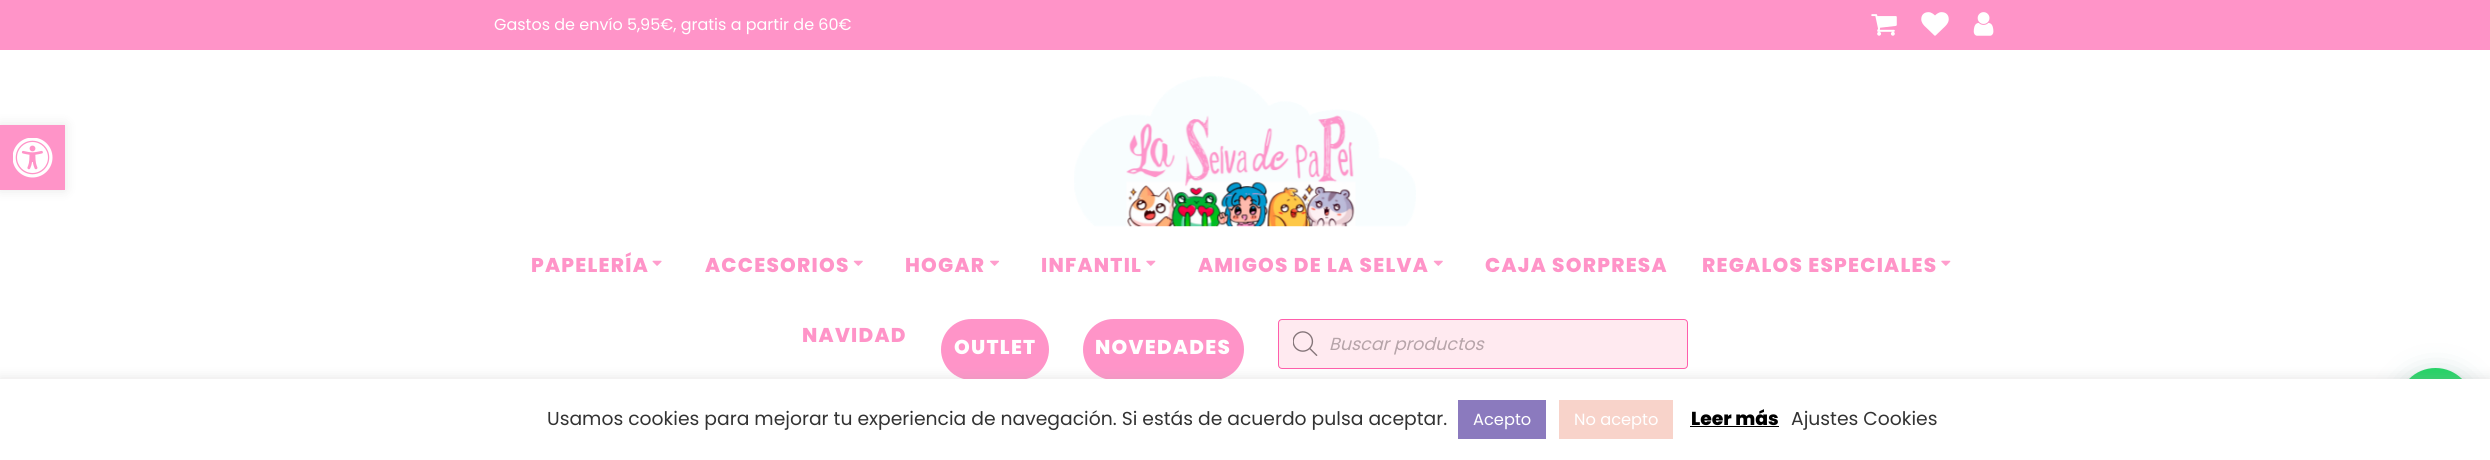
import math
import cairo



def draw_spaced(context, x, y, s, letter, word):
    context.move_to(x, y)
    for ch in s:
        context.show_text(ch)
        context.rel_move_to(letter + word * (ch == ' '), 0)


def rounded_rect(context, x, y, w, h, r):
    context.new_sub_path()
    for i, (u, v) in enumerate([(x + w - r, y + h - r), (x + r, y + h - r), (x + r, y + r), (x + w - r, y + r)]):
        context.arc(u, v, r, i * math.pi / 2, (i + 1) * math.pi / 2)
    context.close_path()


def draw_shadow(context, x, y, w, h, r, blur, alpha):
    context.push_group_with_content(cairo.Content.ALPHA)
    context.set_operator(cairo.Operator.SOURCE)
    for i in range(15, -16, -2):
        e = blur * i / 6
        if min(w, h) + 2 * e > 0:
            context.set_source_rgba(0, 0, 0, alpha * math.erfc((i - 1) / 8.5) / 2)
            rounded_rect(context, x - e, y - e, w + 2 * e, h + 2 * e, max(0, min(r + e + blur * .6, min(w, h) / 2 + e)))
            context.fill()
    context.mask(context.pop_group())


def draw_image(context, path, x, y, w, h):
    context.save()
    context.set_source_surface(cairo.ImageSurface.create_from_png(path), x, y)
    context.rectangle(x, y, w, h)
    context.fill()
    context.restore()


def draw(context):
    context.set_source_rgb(1, 148 / 255, 200 / 255)
    context.paint()
    context.set_source_rgb(1, 1, 1)
    context.rectangle(0, 50, 2490, 329)
    context.fill()
    context.set_source_rgb(0, 0, 0)
    draw_shadow(context, 0, 125, 65, 65, 0, 6, 0.1)
    context.set_source_rgb(1, 148 / 255, 200 / 255)
    context.rectangle(0, 125, 65, 65)
    context.fill()
    draw_image(context, "images/1.png", 13, 138, 40, 40)
    draw_image(context, "images/2.png", 1871, 14, 26, 22)
    draw_image(context, "images/3.png", 1921, 12, 28, 24)
    draw_image(context, "images/4.png", 1973, 12, 21, 24)
    draw_image(context, "images/5.png", 1074, 76, 342, 151)
    draw_image(context, "images/6.png", 652, 260, 10, 6)
    draw_image(context, "images/7.png", 853, 260, 10, 6)
    draw_image(context, "images/8.png", 990, 260, 10, 6)
    draw_image(context, "images/9.png", 1146, 260, 10, 6)
    draw_image(context, "images/7.png", 1433, 260, 10, 6)
    draw_image(context, "images/9.png", 1941, 260, 10, 6)
    rounded_rect(context, 941, 319, 108, 61, 30.5)
    context.fill()
    rounded_rect(context, 1083, 319, 161, 61, 30.5)
    context.fill()
    context.set_source_rgb(1, 234 / 255, 240 / 255)
    rounded_rect(context, 1278.5, 319.5, 409, 49, 3.5)
    context.fill_preserve()
    context.set_source_rgb(1, 94 / 255, 171 / 255)
    context.set_line_width(1)
    context.stroke()
    draw_image(context, "images/10.png", 1293, 331, 25, 25)
    context.set_source_rgb(7 / 255, 94 / 255, 84 / 255)
    draw_shadow(context, 2399, 375, 75, 75, 37.5, 15, 0.24)
    context.set_source_rgb(37 / 255, 211 / 255, 102 / 255)
    context.arc(2435.5, 405.5, 37.5, 0, 2 * math.pi)
    context.fill()
    context.set_source_rgb(172 / 255, 171 / 255, 171 / 255)
    draw_shadow(context, 0, 378, 2490, 81, 0, 6, 0.3)
    context.set_source_rgb(1, 1, 1)
    context.rectangle(0, 379, 2490, 81)
    context.fill()
    context.set_source_rgb(139 / 255, 122 / 255, 190 / 255)
    context.rectangle(1458, 400, 88, 39)
    context.fill()
    context.set_source_rgb(248 / 255, 211 / 255, 202 / 255)
    context.rectangle(1559, 400, 114, 39)
    context.fill()
    context.set_source_rgb(0, 0, 0)
    context.rectangle(1690, 426, 89, 1)
    context.fill()
    context.select_font_face("Poppins")
    context.set_font_size(16)
    context.set_source_rgb(1, 1, 1)
    context.move_to(494, 30)
    context.show_text("Gastos de envío 5,95€, gratis a partir de 60€")
    context.select_font_face("Poppins ExtraBold")
    context.set_font_size(20)
    context.set_source_rgb(1, 148 / 255, 200 / 255)
    draw_spaced(context, 531, 272, "PAPELERÍA", 1.25, 0)
    draw_spaced(context, 705, 272, "ACCESORIOS", 1.25, 0)
    draw_spaced(context, 905, 272, "HOGAR", 1.25, 0)
    draw_spaced(context, 1041, 272, "INFANTIL", 1.25, 0)
    draw_spaced(context, 1198, 272, "AMIGOS DE LA SELVA", 1.25, 0)
    draw_spaced(context, 1485, 272, "CAJA SORPRESA", 1.25, 0)
    draw_spaced(context, 1702, 272, "REGALOS ESPECIALES", 1.25, 0)
    draw_spaced(context, 802, 342, "NAVIDAD", 1.25, 0)
    context.set_source_rgb(1, 1, 1)
    draw_spaced(context, 954, 354, "OUTLET", 1.25, 0)
    draw_spaced(context, 1095, 354, "NOVEDADES", 1.25, 0)
    context.select_font_face("Poppins", cairo.FontSlant.ITALIC)
    context.set_font_size(17.5)
    context.set_source_rgb(182 / 255, 164 / 255, 169 / 255)
    context.move_to(1329, 350)
    context.show_text("Buscar productos")
    context.select_font_face("Poppins")
    context.set_font_size(18.75)
    context.set_source_rgb(51 / 255, 51 / 255, 51 / 255)
    context.move_to(547, 425)
    context.show_text("Usamos cookies para mejorar tu experiencia de navegación. Si estás de acuerdo pulsa aceptar.")
    context.set_font_size(16.25)
    context.set_source_rgb(1, 1, 1)
    context.move_to(1473, 425)
    context.show_text("Acepto")
    context.move_to(1574, 425)
    context.show_text("No acepto")
    context.select_font_face("Poppins ExtraBold")
    context.set_font_size(18.75)
    context.set_source_rgb(0, 0, 0)
    context.move_to(1691, 425)
    context.show_text("Leer más")
    context.select_font_face("Poppins")
    context.set_source_rgb(51 / 255, 51 / 255, 51 / 255)
    context.move_to(1791, 425)
    context.show_text("Ajustes Cookies")


surface = cairo.ImageSurface(cairo.Format.RGB24, 2490, 460)
context = cairo.Context(surface)
options = cairo.FontOptions()
options.set_hint_metrics(cairo.HintMetrics.OFF)
options.set_hint_style(cairo.HintStyle.NONE)
context.set_font_options(options)
context.set_miter_limit(4)
draw(context)
surface.write_to_png("out.png")
